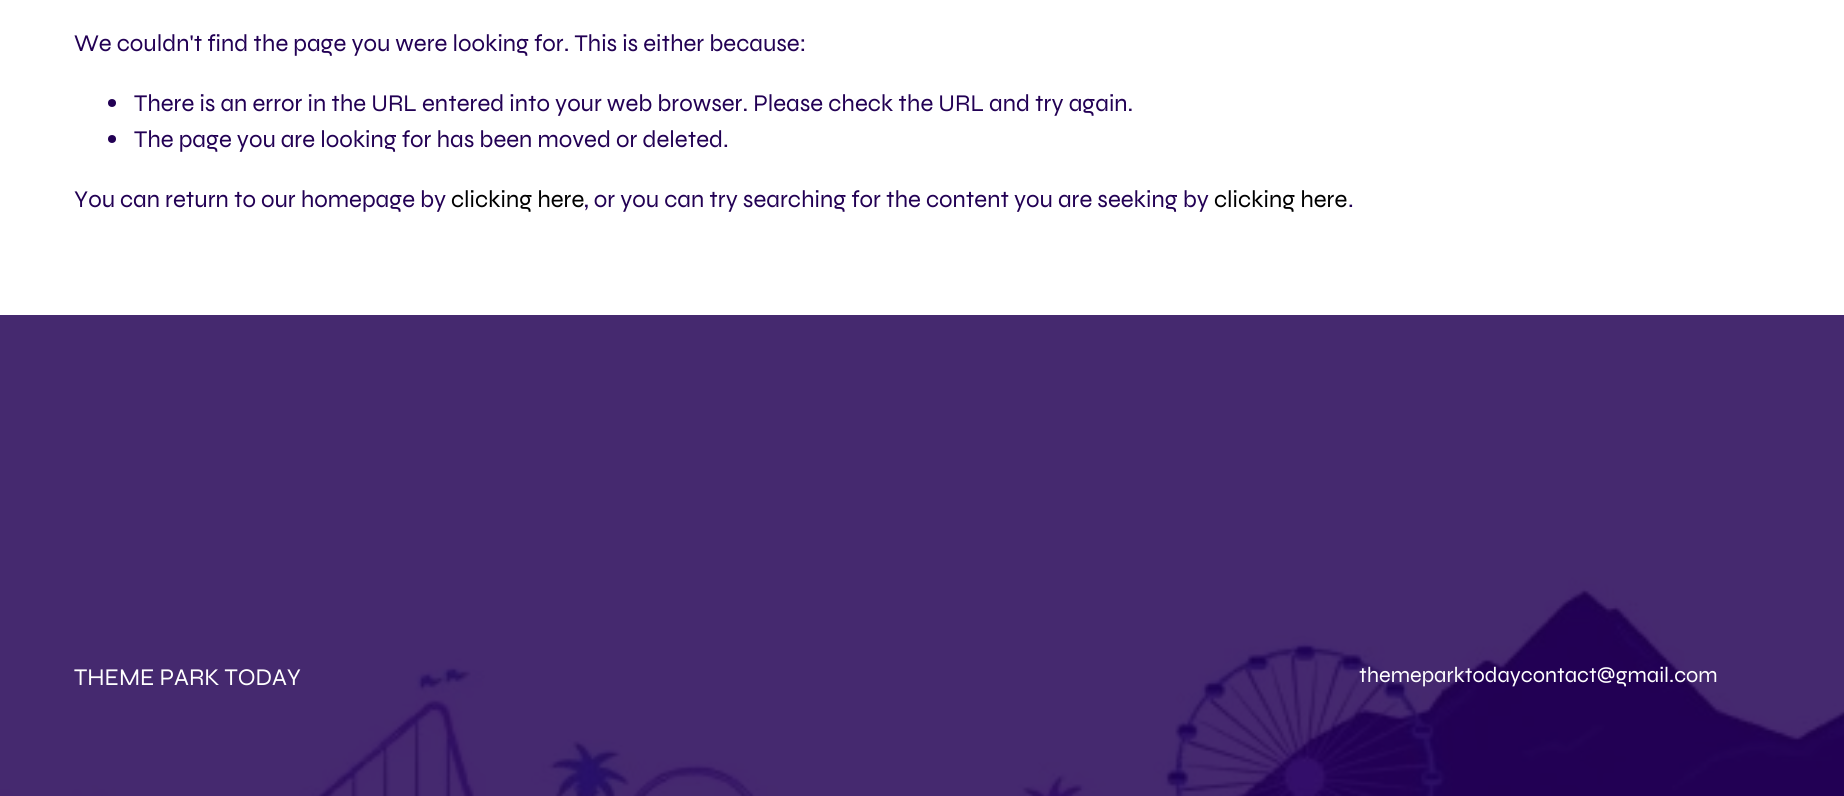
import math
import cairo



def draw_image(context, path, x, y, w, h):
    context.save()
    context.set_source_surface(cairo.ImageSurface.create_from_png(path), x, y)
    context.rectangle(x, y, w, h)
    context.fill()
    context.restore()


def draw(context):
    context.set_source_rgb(1, 1, 1)
    context.paint()
    context.set_source_rgb(34 / 255, 0, 84 / 255)
    context.arc(112, 103, 4, 0, 2 * math.pi)
    context.fill()
    context.arc(112, 139, 4, 0, 2 * math.pi)
    context.fill()
    draw_image(context, "images/1.png", 0, 315, 1844, 481)
    context.select_font_face("Syne")
    context.set_font_size(24)
    context.move_to(74, 51)
    context.show_text("We couldn't find the page you were looking for. This is either because:")
    context.move_to(134, 111)
    context.show_text("There is an error in the URL entered into your web browser. Please check the URL and try again.")
    context.move_to(134, 147)
    context.show_text("The page you are looking for has been moved or deleted.")
    context.move_to(74, 207)
    context.show_text("You can return to our homepage by")
    context.set_source_rgb(0, 0, 0)
    context.move_to(451, 207)
    context.show_text("clicking here")
    context.set_source_rgb(34 / 255, 0, 84 / 255)
    context.move_to(584, 207)
    context.show_text(", or you can try searching for the content you are seeking by")
    context.set_source_rgb(0, 0, 0)
    context.move_to(1214, 207)
    context.show_text("clicking here")
    context.set_source_rgb(34 / 255, 0, 84 / 255)
    context.move_to(1348, 207)
    context.show_text(".")
    context.set_source_rgb(1, 1, 1)
    context.move_to(74, 685)
    context.show_text("THEME PARK TODAY")
    context.set_font_size(21.75)
    context.move_to(1359, 682)
    context.show_text("themeparktodaycontact@gmail.com")


surface = cairo.ImageSurface(cairo.Format.RGB24, 1844, 796)
context = cairo.Context(surface)
options = cairo.FontOptions()
options.set_hint_metrics(cairo.HintMetrics.OFF)
options.set_hint_style(cairo.HintStyle.NONE)
context.set_font_options(options)
context.set_miter_limit(4)
draw(context)
surface.write_to_png("out.png")
